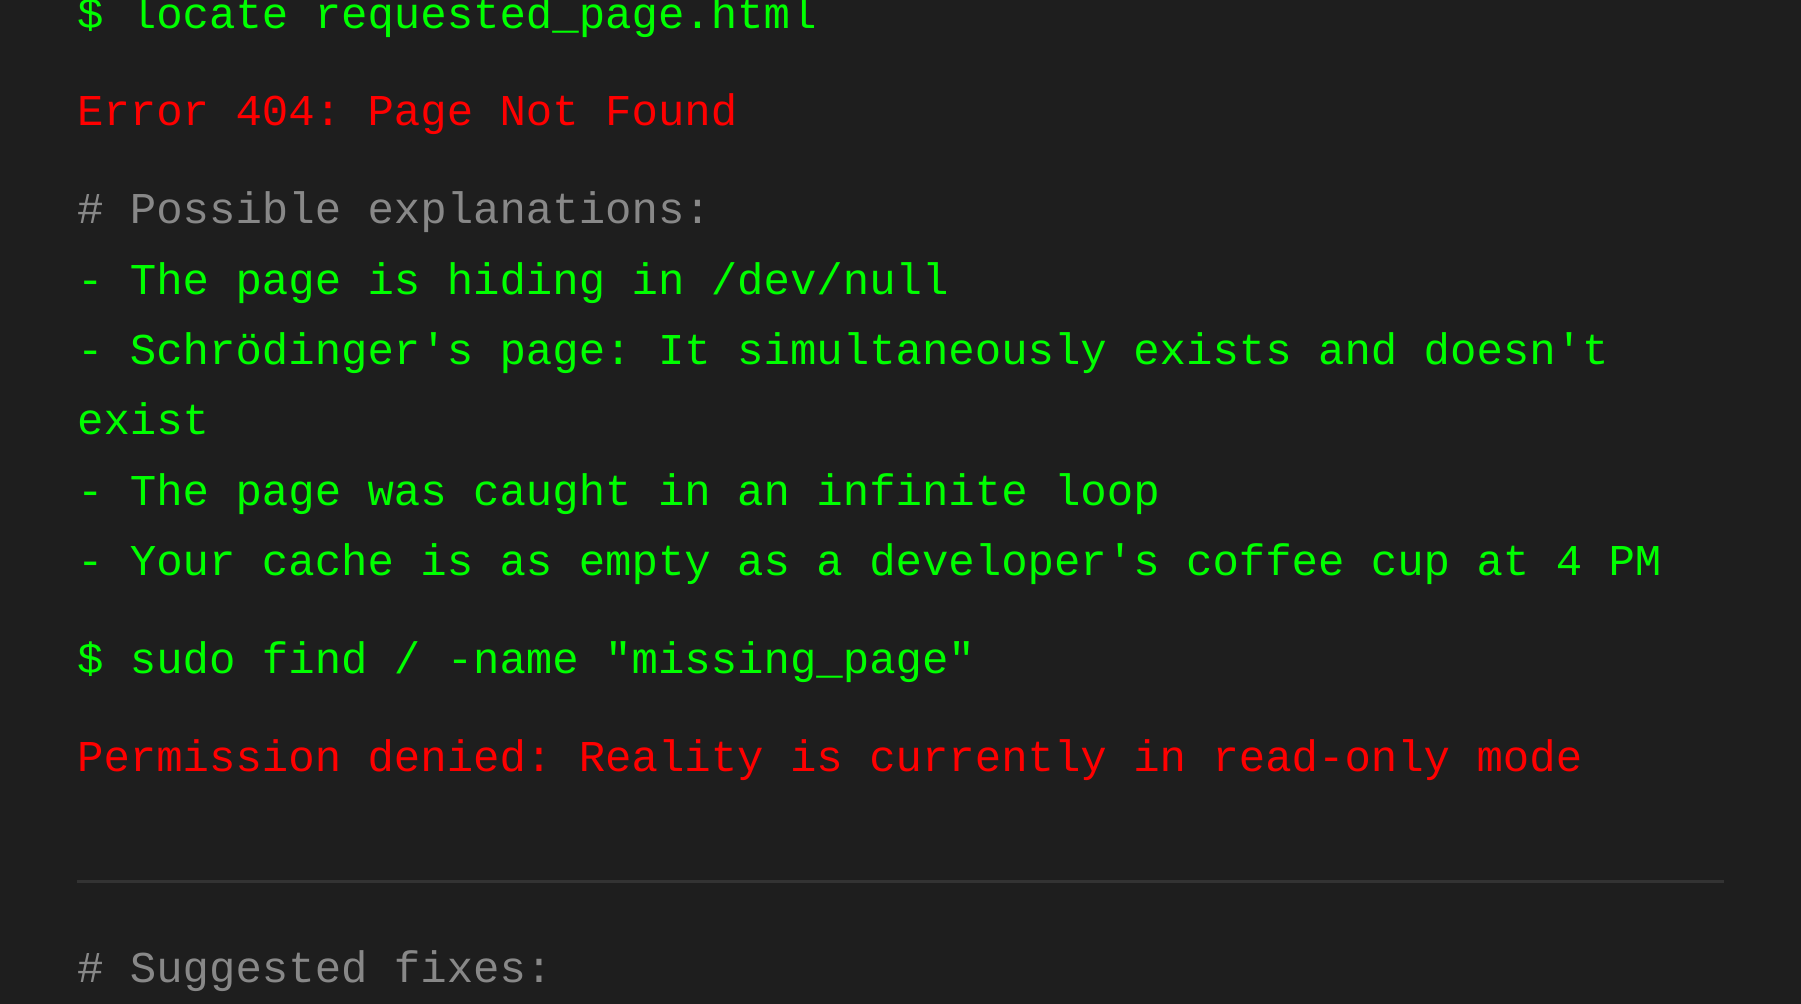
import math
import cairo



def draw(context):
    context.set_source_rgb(30 / 255, 30 / 255, 30 / 255)
    context.paint()
    context.set_source_rgb(51 / 255, 51 / 255, 51 / 255)
    context.rectangle(77, 880, 1647, 3)
    context.fill()
    context.select_font_face("Liberation Mono")
    context.set_font_size(44)
    context.set_source_rgb(0, 1, 0)
    context.move_to(77, 28)
    context.show_text("$ locate requested_page.html")
    context.set_source_rgb(1, 0, 0)
    context.move_to(77, 125)
    context.show_text("Error 404: Page Not Found")
    context.set_source_rgb(136 / 255, 136 / 255, 136 / 255)
    context.move_to(77, 223)
    context.show_text("# Possible explanations:")
    context.set_source_rgb(0, 1, 0)
    context.move_to(77, 294)
    context.show_text("- The page is hiding in /dev/null")
    context.move_to(77, 364)
    context.show_text("- Schrödinger's page: It simultaneously exists and doesn't")
    context.move_to(77, 434)
    context.show_text("exist")
    context.move_to(77, 505)
    context.show_text("- The page was caught in an infinite loop")
    context.move_to(77, 575)
    context.show_text("- Your cache is as empty as a developer's coffee cup at 4 PM")
    context.move_to(77, 673)
    context.show_text("$ sudo find / -name \"missing_page\"")
    context.set_source_rgb(1, 0, 0)
    context.move_to(77, 771)
    context.show_text("Permission denied: Reality is currently in read-only mode")
    context.set_source_rgb(136 / 255, 136 / 255, 136 / 255)
    context.move_to(77, 982)
    context.show_text("# Suggested fixes:")


surface = cairo.ImageSurface(cairo.Format.RGB24, 1801, 1004)
context = cairo.Context(surface)
options = cairo.FontOptions()
options.set_hint_metrics(cairo.HintMetrics.OFF)
options.set_hint_style(cairo.HintStyle.NONE)
context.set_font_options(options)
context.set_miter_limit(4)
draw(context)
surface.write_to_png("out.png")
